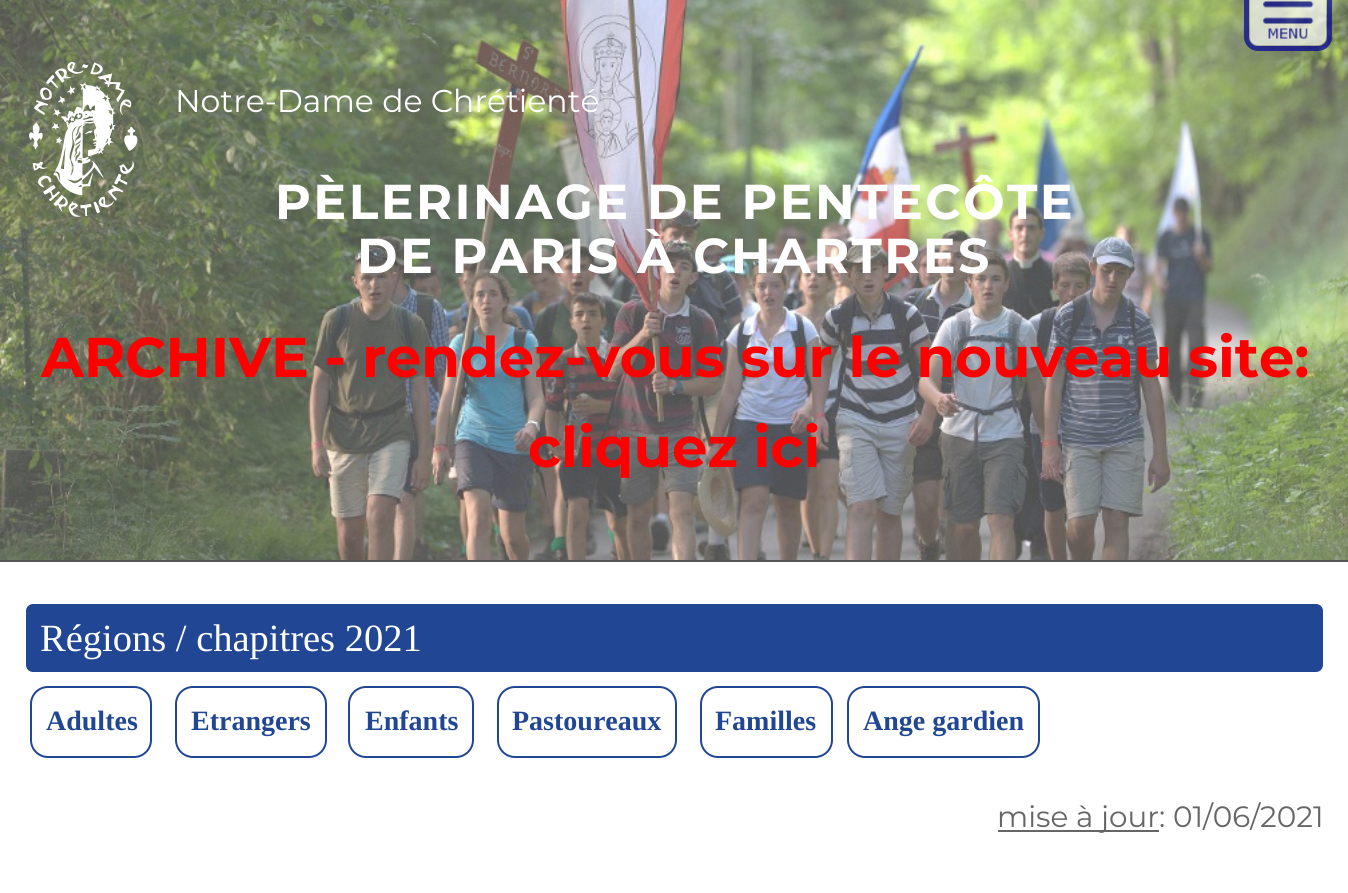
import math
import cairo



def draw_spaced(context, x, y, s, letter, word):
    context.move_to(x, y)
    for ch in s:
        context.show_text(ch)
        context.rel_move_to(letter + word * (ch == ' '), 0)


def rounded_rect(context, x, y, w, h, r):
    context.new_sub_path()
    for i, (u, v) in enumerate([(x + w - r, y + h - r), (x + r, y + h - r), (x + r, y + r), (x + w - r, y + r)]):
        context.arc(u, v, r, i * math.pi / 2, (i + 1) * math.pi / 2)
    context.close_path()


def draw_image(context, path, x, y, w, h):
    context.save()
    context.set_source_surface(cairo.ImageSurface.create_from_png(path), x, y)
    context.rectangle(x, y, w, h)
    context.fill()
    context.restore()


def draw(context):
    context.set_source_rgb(1, 1, 1)
    context.paint()
    draw_image(context, "images/3.png", 0, 0, 1348, 560)
    rounded_rect(context, 1246.5, -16.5, 83, 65, 11.5)
    context.set_source_rgba(0, 0, 153 / 255, 0.7)
    context.set_line_width(5)
    context.stroke()
    draw_image(context, "images/1.png", 1249, 0, 78, 46)
    draw_image(context, "images/2.png", 29, 61, 109, 156)
    context.set_source_rgb(85 / 255, 85 / 255, 85 / 255)
    context.rectangle(0, 560, 1348, 2)
    context.fill()
    context.set_source_rgb(33 / 255, 71 / 255, 148 / 255)
    rounded_rect(context, 26, 604, 1297, 68, 7)
    context.fill()
    rounded_rect(context, 31, 687, 120, 70, 17)
    context.set_line_width(2)
    context.stroke()
    rounded_rect(context, 176, 687, 150, 70, 17)
    context.stroke()
    rounded_rect(context, 349, 687, 124, 70, 17)
    context.stroke()
    rounded_rect(context, 498, 687, 178, 70, 17)
    context.stroke()
    rounded_rect(context, 701, 687, 131, 70, 17)
    context.stroke()
    rounded_rect(context, 848, 687, 191, 70, 17)
    context.stroke()
    context.set_source_rgb(102 / 255, 102 / 255, 102 / 255)
    context.rectangle(998, 830, 161, 2)
    context.fill()
    context.select_font_face("Montserrat")
    context.set_font_size(31.5)
    context.set_source_rgb(1, 1, 1)
    context.move_to(175, 112)
    context.show_text("Notre-Dame de Chrétienté")
    context.select_font_face("Montserrat", cairo.FontSlant.NORMAL, cairo.FontWeight.BOLD)
    context.set_font_size(49)
    draw_spaced(context, 275, 219, "PÈLERINAGE DE PENTECÔTE", 2.45, 0)
    draw_spaced(context, 357, 273, "DE PARIS À CHARTRES", 2.45, 0)
    context.set_font_size(56)
    context.set_source_rgb(1, 0, 0)
    context.move_to(41, 377)
    context.show_text("ARCHIVE - rendez-vous sur le nouveau site:")
    context.move_to(528, 467)
    context.show_text("cliquez ici")
    context.select_font_face("Liberation Serif")
    context.set_font_size(38.5)
    context.set_source_rgb(1, 1, 1)
    context.move_to(40, 651)
    context.show_text("Régions / chapitres 2021")
    context.select_font_face("Liberation Serif", cairo.FontSlant.NORMAL, cairo.FontWeight.BOLD)
    context.set_font_size(28)
    context.set_source_rgb(33 / 255, 71 / 255, 148 / 255)
    context.move_to(46, 730)
    context.show_text("Adultes")
    context.move_to(191, 730)
    context.show_text("Etrangers")
    context.move_to(365, 730)
    context.show_text("Enfants")
    context.move_to(512, 730)
    context.show_text("Pastoureaux")
    context.move_to(715, 730)
    context.show_text("Familles")
    context.move_to(863, 730)
    context.show_text("Ange gardien")
    context.select_font_face("Montserrat")
    context.set_font_size(29.4)
    context.set_source_rgb(102 / 255, 102 / 255, 102 / 255)
    context.move_to(997, 827)
    context.show_text("mise à jour: 01/06/2021")


surface = cairo.ImageSurface(cairo.Format.RGB24, 1348, 893)
context = cairo.Context(surface)
options = cairo.FontOptions()
options.set_hint_metrics(cairo.HintMetrics.OFF)
options.set_hint_style(cairo.HintStyle.NONE)
context.set_font_options(options)
context.set_miter_limit(4)
draw(context)
surface.write_to_png("out.png")
